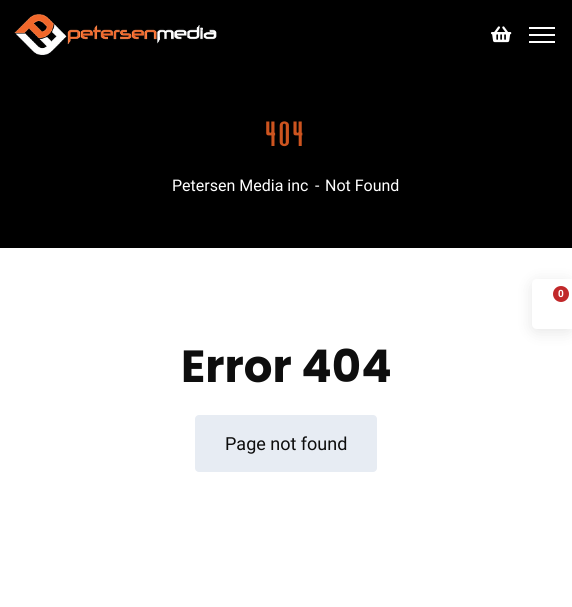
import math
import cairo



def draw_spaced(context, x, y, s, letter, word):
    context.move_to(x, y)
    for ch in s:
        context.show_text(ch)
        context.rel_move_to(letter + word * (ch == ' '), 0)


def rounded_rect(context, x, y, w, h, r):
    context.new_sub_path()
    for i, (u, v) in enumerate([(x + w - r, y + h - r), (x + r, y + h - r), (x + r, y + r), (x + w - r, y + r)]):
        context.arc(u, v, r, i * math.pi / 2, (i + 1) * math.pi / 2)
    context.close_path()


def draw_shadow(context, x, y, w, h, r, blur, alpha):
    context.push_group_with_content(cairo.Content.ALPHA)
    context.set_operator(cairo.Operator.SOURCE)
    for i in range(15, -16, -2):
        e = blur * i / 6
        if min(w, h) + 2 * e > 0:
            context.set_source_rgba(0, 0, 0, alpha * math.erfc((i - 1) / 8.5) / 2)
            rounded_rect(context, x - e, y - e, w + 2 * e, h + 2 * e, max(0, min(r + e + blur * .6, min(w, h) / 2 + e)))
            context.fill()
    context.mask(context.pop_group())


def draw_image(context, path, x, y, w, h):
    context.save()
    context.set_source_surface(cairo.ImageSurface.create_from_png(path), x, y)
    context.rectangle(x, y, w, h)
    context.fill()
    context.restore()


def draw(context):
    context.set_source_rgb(1, 1, 1)
    context.paint()
    context.set_source_rgb(0, 0, 0)
    context.rectangle(0, 0, 572, 248)
    context.fill()
    draw_image(context, "images/1.png", 14, 14, 203, 41)
    draw_image(context, "images/2.png", 491, 26, 21, 17)
    context.set_source_rgb(1, 1, 1)
    context.rectangle(529, 27, 26, 2)
    context.fill()
    context.rectangle(529, 34, 26, 2)
    context.fill()
    context.rectangle(529, 41, 26, 2)
    context.fill()
    context.set_source_rgb(231 / 255, 236 / 255, 243 / 255)
    rounded_rect(context, 195, 415, 182, 57, 4)
    context.fill()
    context.set_source_rgb(0, 0, 0)
    draw_shadow(context, 532, 282, 40, 50, 5, 7.5, 0.1)
    context.set_source_rgb(1, 1, 1)
    context.new_path()
    context.move_to(537, 279)
    context.line_to(572, 279)
    context.line_to(572, 329)
    context.line_to(537, 329)
    context.curve_to(534, 329, 532, 327, 532, 324)
    context.line_to(532, 284)
    context.curve_to(532, 281, 534, 279, 537, 279)
    context.close_path()
    context.fill()
    context.set_source_rgb(193 / 255, 40 / 255, 42 / 255)
    context.arc(561, 294, 8, 0, 2 * math.pi)
    context.fill()
    context.select_font_face("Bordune", cairo.FontSlant.NORMAL, cairo.FontWeight.BOLD)
    context.set_font_size(35)
    context.set_source_rgb(205 / 255, 84 / 255, 31 / 255)
    draw_spaced(context, 265, 146, "404", 2, 0)
    context.select_font_face("Roboto")
    context.set_font_size(16)
    context.set_source_rgb(1, 1, 1)
    context.move_to(172, 191)
    context.show_text("Petersen Media inc")
    context.move_to(315, 191)
    context.show_text("-")
    context.move_to(325, 191)
    context.show_text("Not Found")
    context.select_font_face("Poppins", cairo.FontSlant.NORMAL, cairo.FontWeight.BOLD)
    context.set_font_size(45)
    context.set_source_rgb(14 / 255, 14 / 255, 14 / 255)
    context.move_to(181, 382)
    context.show_text("Error 404")
    context.select_font_face("Roboto")
    context.set_font_size(18)
    context.move_to(225, 450)
    context.show_text("Page not found")
    context.select_font_face("Roboto", cairo.FontSlant.NORMAL, cairo.FontWeight.BOLD)
    context.set_font_size(10)
    context.set_source_rgb(1, 1, 1)
    context.move_to(558, 297)
    context.show_text("0")


surface = cairo.ImageSurface(cairo.Format.RGB24, 572, 607)
context = cairo.Context(surface)
options = cairo.FontOptions()
options.set_hint_metrics(cairo.HintMetrics.OFF)
options.set_hint_style(cairo.HintStyle.NONE)
context.set_font_options(options)
context.set_miter_limit(4)
draw(context)
surface.write_to_png("out.png")
